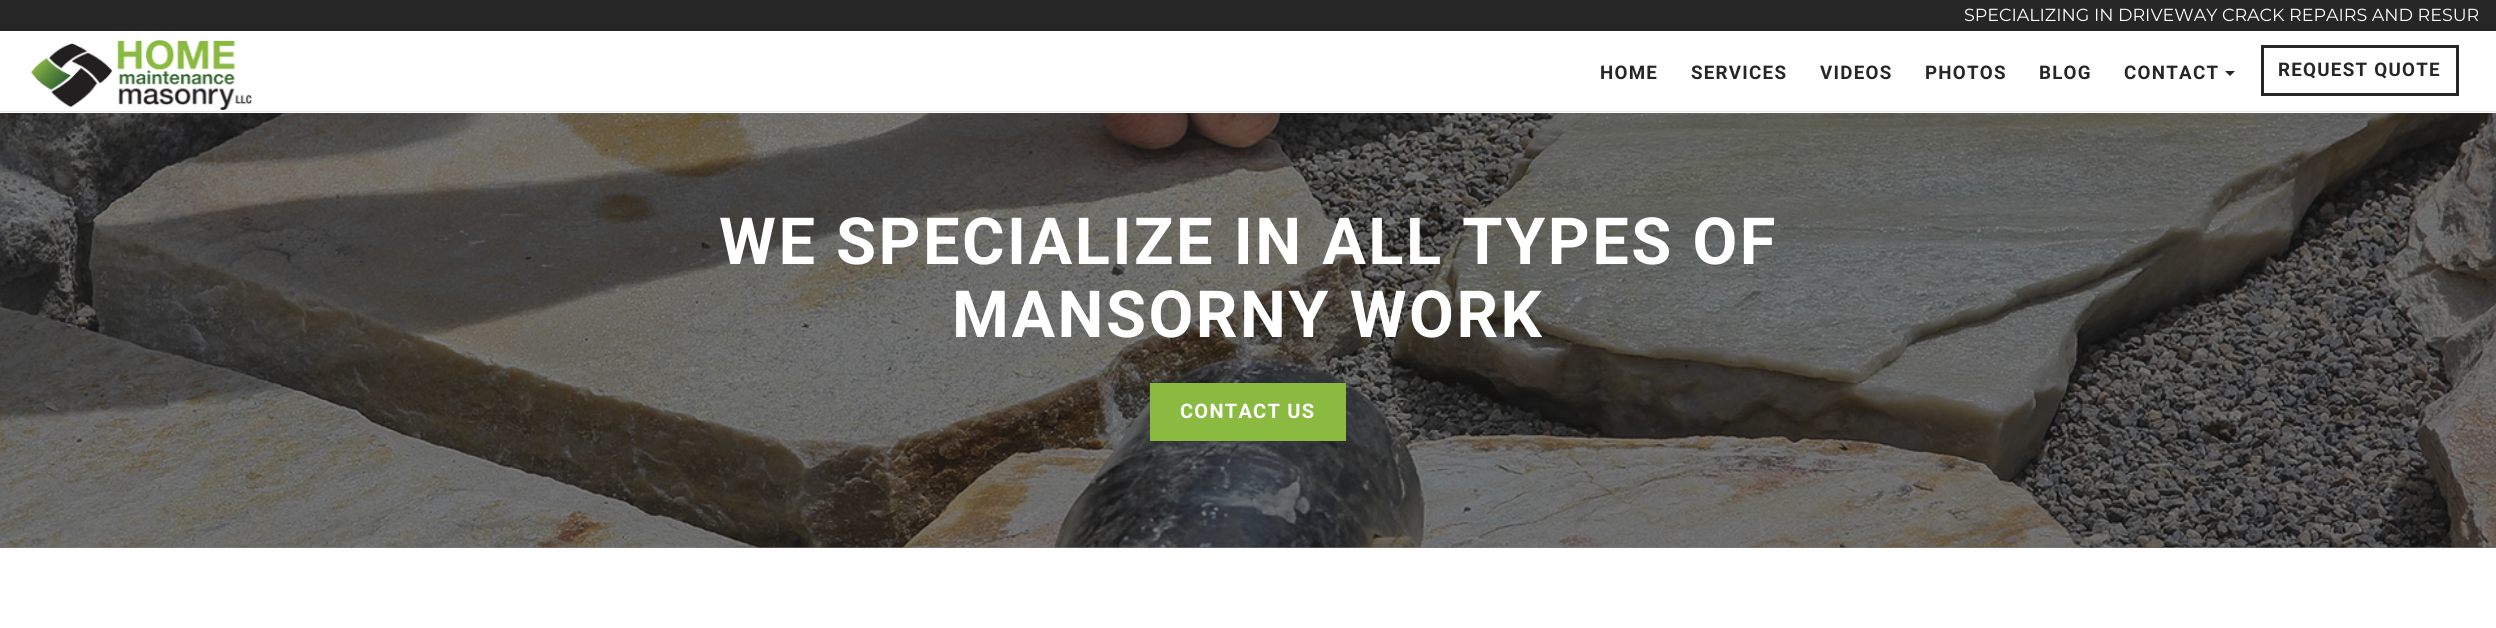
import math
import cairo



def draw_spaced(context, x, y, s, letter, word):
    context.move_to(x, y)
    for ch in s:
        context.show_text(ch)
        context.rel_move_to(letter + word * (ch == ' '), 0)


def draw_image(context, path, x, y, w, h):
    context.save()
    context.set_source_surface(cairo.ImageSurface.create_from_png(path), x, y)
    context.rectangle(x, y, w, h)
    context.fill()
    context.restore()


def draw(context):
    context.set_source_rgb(1, 1, 1)
    context.paint()
    context.set_source_rgb(129 / 255, 129 / 255, 129 / 255)
    context.rectangle(0, 547, 2496, 1)
    context.fill()
    context.set_source_rgb(230 / 255, 230 / 255, 230 / 255)
    context.rectangle(0, 111, 2496, 1)
    context.fill()
    context.set_source_rgb(38 / 255, 38 / 255, 38 / 255)
    context.rectangle(0, 0, 2496, 31)
    context.fill()
    draw_image(context, "images/1.png", 31, 40, 221, 70)
    context.new_path()
    context.move_to(2225, 71)
    context.line_to(2235, 71)
    context.line_to(2230, 76)
    context.close_path()
    context.fill()
    context.rectangle(2262.5, 46.5, 195, 48)
    context.set_line_width(3)
    context.stroke()
    draw_image(context, "images/2.png", 0, 113, 2496, 435)
    context.set_source_rgb(138 / 255, 186 / 255, 64 / 255)
    context.rectangle(1150, 383, 196, 58)
    context.fill()
    context.save()
    context.rectangle(19, 0, 2459, 30)
    context.clip()
    context.select_font_face("Montserrat")
    context.set_font_size(17.5)
    context.set_source_rgb(1, 1, 1)
    context.move_to(1964, 21)
    context.show_text("SPECIALIZING IN DRIVEWAY CRACK REPAIRS AND RESUR")
    context.restore()
    context.select_font_face("Roboto", cairo.FontSlant.NORMAL, cairo.FontWeight.BOLD)
    context.set_font_size(18.75)
    context.set_source_rgb(38 / 255, 38 / 255, 38 / 255)
    draw_spaced(context, 1600, 79, "HOME", 1.25, 0)
    draw_spaced(context, 1691, 79, "SERVICES", 1.25, 0)
    draw_spaced(context, 1820, 79, "VIDEOS", 1.25, 0)
    draw_spaced(context, 1925, 79, "PHOTOS", 1.25, 0)
    draw_spaced(context, 2039, 79, "BLOG", 1.25, 0)
    draw_spaced(context, 2124, 79, "CONTACT", 1.25, 0)
    draw_spaced(context, 2278, 76, "REQUEST QUOTE", 1.25, 0)
    context.set_font_size(65)
    context.set_source_rgb(1, 1, 1)
    draw_spaced(context, 719, 264, "WE SPECIALIZE IN ALL TYPES OF", 2.5, 0)
    draw_spaced(context, 952, 337, "MANSORNY WORK", 2.5, 0)
    context.set_font_size(20)
    draw_spaced(context, 1180, 418, "CONTACT US", 1.25, 0)


surface = cairo.ImageSurface(cairo.Format.RGB24, 2496, 628)
context = cairo.Context(surface)
options = cairo.FontOptions()
options.set_hint_metrics(cairo.HintMetrics.OFF)
options.set_hint_style(cairo.HintStyle.NONE)
context.set_font_options(options)
context.set_miter_limit(4)
draw(context)
surface.write_to_png("out.png")
